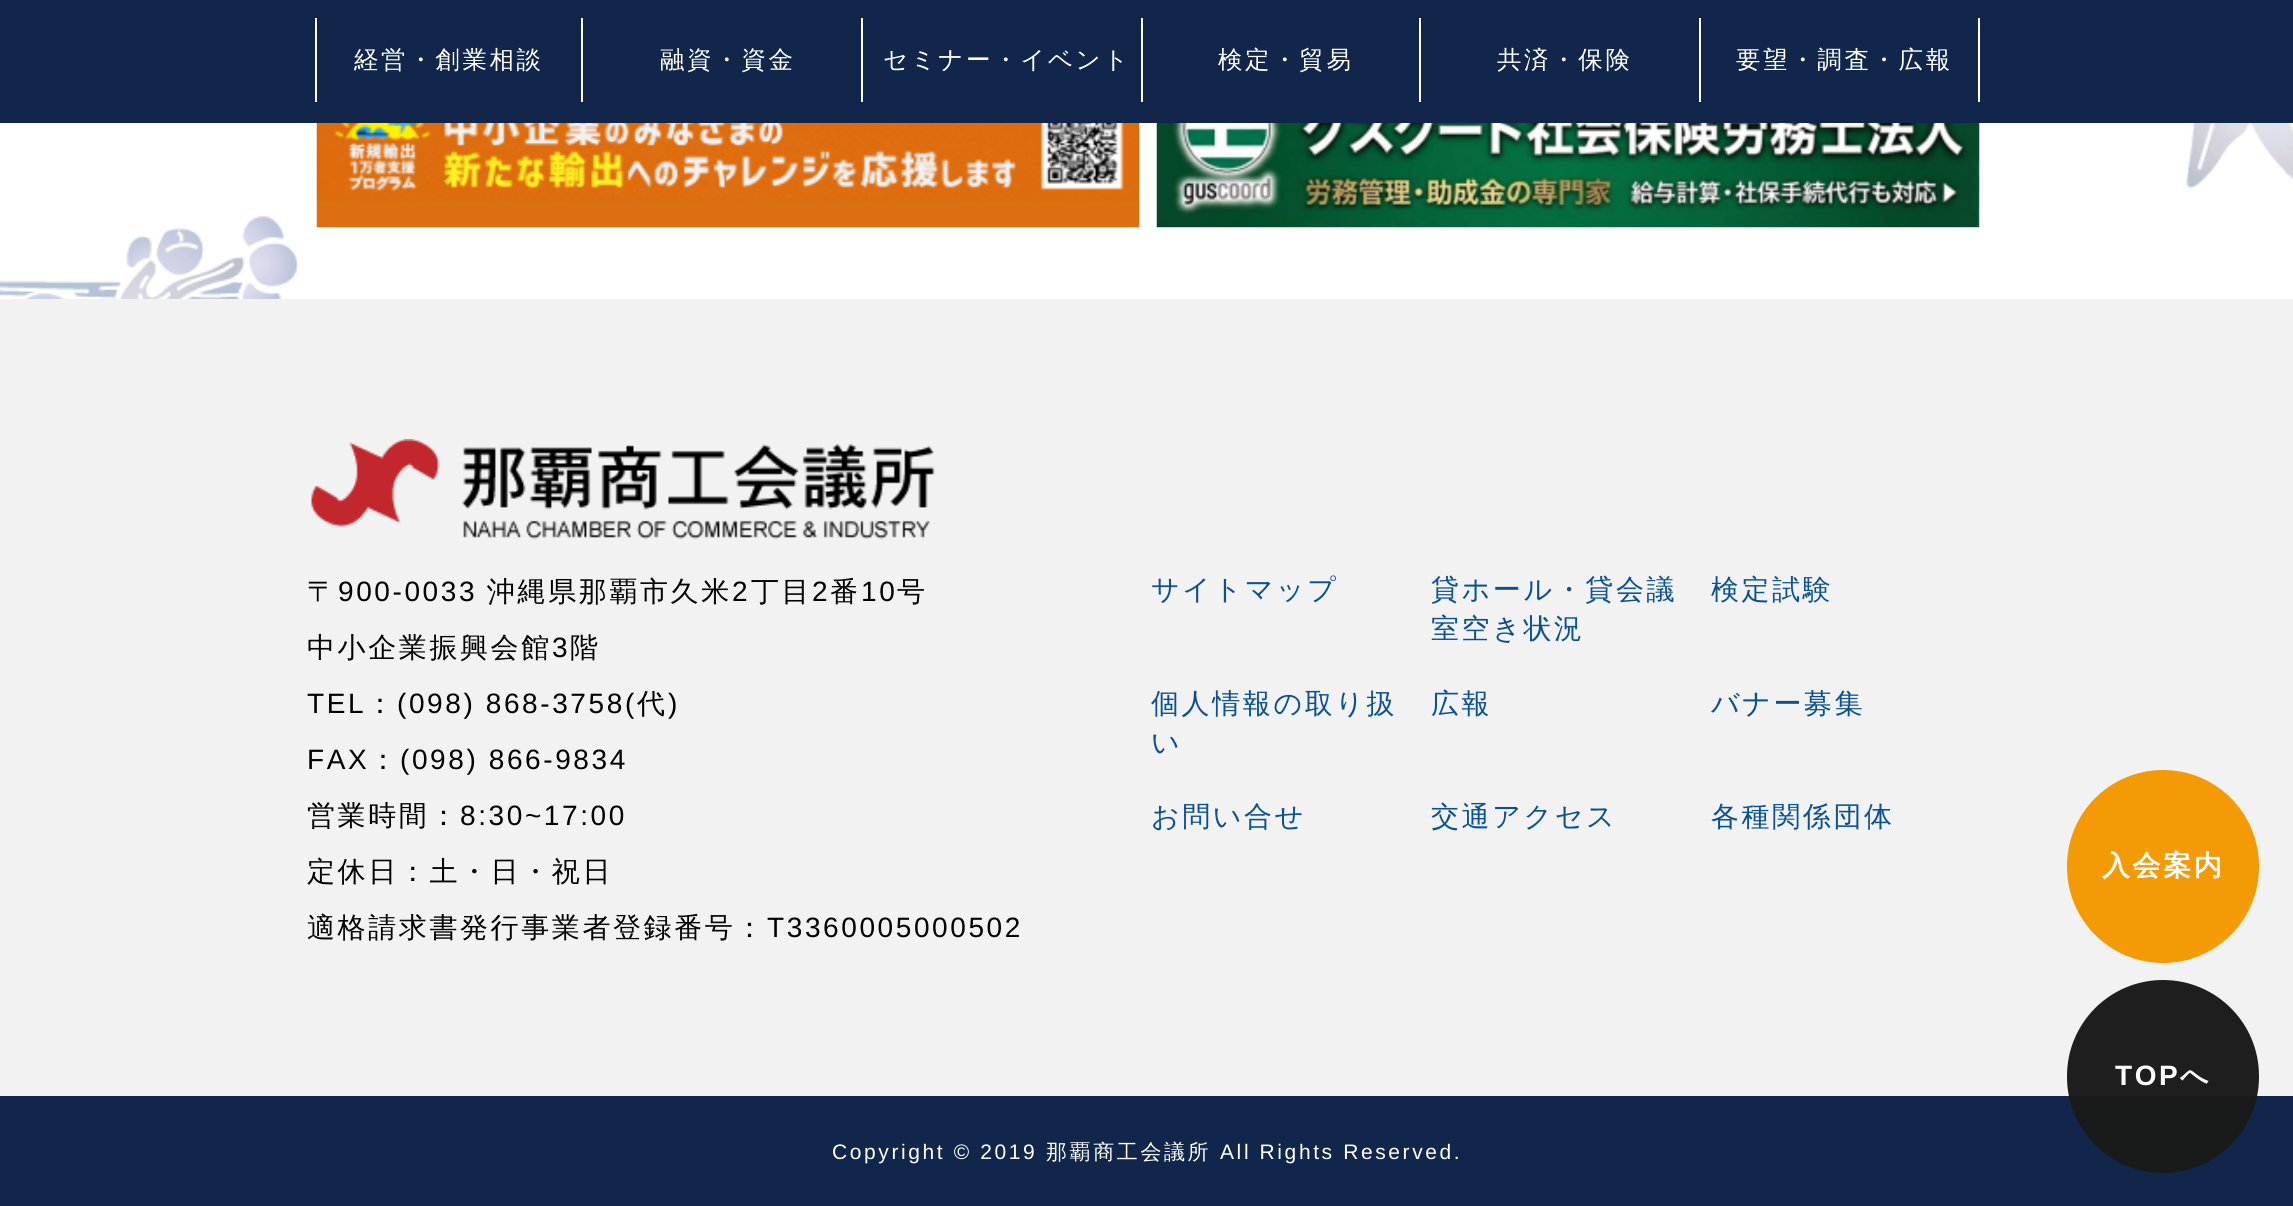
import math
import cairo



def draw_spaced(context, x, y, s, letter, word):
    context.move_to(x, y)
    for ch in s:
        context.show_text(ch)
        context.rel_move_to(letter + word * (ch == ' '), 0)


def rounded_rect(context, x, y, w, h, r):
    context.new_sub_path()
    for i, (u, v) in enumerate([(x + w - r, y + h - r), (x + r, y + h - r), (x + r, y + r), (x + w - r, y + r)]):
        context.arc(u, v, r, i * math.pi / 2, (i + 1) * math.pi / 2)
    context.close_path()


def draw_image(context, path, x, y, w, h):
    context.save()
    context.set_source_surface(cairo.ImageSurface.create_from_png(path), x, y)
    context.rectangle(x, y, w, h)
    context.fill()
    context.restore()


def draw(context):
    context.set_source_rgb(1, 1, 1)
    context.paint()
    draw_image(context, "images/1.png", 0, 123, 2293, 176)
    context.set_source_rgb(17 / 255, 38 / 255, 74 / 255)
    context.rectangle(0, 0, 2293, 123)
    context.fill()
    context.set_source_rgb(1, 1, 1)
    context.rectangle(581, 18, 2, 84)
    context.fill()
    context.rectangle(315, 18, 2, 84)
    context.fill()
    context.rectangle(861, 18, 2, 84)
    context.fill()
    context.rectangle(1141, 18, 2, 84)
    context.fill()
    context.rectangle(1419, 18, 2, 84)
    context.fill()
    context.rectangle(1699, 18, 2, 84)
    context.fill()
    context.rectangle(1978, 18, 2, 84)
    context.fill()
    draw_image(context, "images/2.png", 316, 123, 824, 105)
    draw_image(context, "images/3.png", 1156, 123, 824, 105)
    context.set_source_rgb(242 / 255, 242 / 255, 242 / 255)
    context.rectangle(0, 299, 2293, 797)
    context.fill()
    draw_image(context, "images/4.png", 311, 439, 624, 101)
    context.set_source_rgb(17 / 255, 38 / 255, 74 / 255)
    context.rectangle(0, 1096, 2293, 110)
    context.fill()
    context.set_source_rgb(243 / 255, 154 / 255, 6 / 255)
    rounded_rect(context, 2067, 770, 192, 193, 96)
    context.fill()
    context.set_source_rgba(26 / 255, 26 / 255, 26 / 255, 0.98)
    rounded_rect(context, 2067, 980, 192, 193, 96)
    context.fill()
    context.select_font_face("WenQuanYi Zen Hei Medium")
    context.set_font_size(24.5)
    context.set_source_rgb(1, 1, 1)
    draw_spaced(context, 354, 68, "経営・創業相談", 2.6, 0)
    draw_spaced(context, 660, 68, "融資・資金", 2.6, 0)
    draw_spaced(context, 883, 68, "セミナー・イベント", 2.6, 0)
    draw_spaced(context, 1218, 68, "検定・貿易", 2.6, 0)
    draw_spaced(context, 1497, 68, "共済・保険", 2.6, 0)
    draw_spaced(context, 1736, 68, "要望・調査・広報", 2.6, 0)
    context.set_font_size(28)
    context.set_source_rgb(0, 0, 0)
    draw_spaced(context, 307, 601, "〒", 2.6, 0)
    context.select_font_face("Liberation Sans")
    draw_spaced(context, 338, 601, "900-0033", 2.6, 0)
    context.select_font_face("WenQuanYi Zen Hei Medium")
    draw_spaced(context, 487, 601, "沖縄県那覇市久米", 2.6, 0)
    context.select_font_face("Liberation Sans")
    draw_spaced(context, 732, 601, "2", 2.6, 0)
    context.select_font_face("WenQuanYi Zen Hei Medium")
    draw_spaced(context, 751, 601, "丁目", 2.6, 0)
    context.select_font_face("Liberation Sans")
    draw_spaced(context, 812, 601, "2", 2.6, 0)
    context.select_font_face("WenQuanYi Zen Hei Medium")
    draw_spaced(context, 830, 601, "番", 2.6, 0)
    context.select_font_face("Liberation Sans")
    draw_spaced(context, 861, 601, "10", 2.6, 0)
    context.select_font_face("WenQuanYi Zen Hei Medium")
    draw_spaced(context, 897, 601, "号", 2.6, 0)
    draw_spaced(context, 307, 657, "中小企業振興会館", 2.6, 0)
    context.select_font_face("Liberation Sans")
    draw_spaced(context, 552, 657, "3", 2.6, 0)
    context.select_font_face("WenQuanYi Zen Hei Medium")
    draw_spaced(context, 570, 657, "階", 2.6, 0)
    context.select_font_face("Liberation Sans")
    draw_spaced(context, 307, 713, "TEL", 2.6, 0)
    context.select_font_face("WenQuanYi Zen Hei Medium")
    draw_spaced(context, 366, 713, "：", 2.6, 0)
    context.select_font_face("Liberation Sans")
    draw_spaced(context, 397, 713, "(098) 868-3758(", 2.6, 0)
    context.select_font_face("WenQuanYi Zen Hei Medium")
    draw_spaced(context, 637, 713, "代", 2.6, 0)
    context.select_font_face("Liberation Sans")
    draw_spaced(context, 668, 713, ")", 2.6, 0)
    draw_spaced(context, 307, 769, "FAX", 2.6, 0)
    context.select_font_face("WenQuanYi Zen Hei Medium")
    draw_spaced(context, 369, 769, "：", 2.6, 0)
    context.select_font_face("Liberation Sans")
    draw_spaced(context, 400, 769, "(098) 866-9834", 2.6, 0)
    context.select_font_face("WenQuanYi Zen Hei Medium")
    draw_spaced(context, 307, 825, "営業時間：", 2.6, 0)
    context.select_font_face("Liberation Sans")
    draw_spaced(context, 460, 825, "8:30~17:00", 2.6, 0)
    context.select_font_face("WenQuanYi Zen Hei Medium")
    draw_spaced(context, 307, 881, "定休日：土・日・祝日", 2.6, 0)
    draw_spaced(context, 307, 937, "適格請求書発行事業者登録番号：", 2.6, 0)
    context.select_font_face("Liberation Sans")
    draw_spaced(context, 767, 937, "T3360005000502", 2.6, 0)
    context.select_font_face("WenQuanYi Zen Hei Medium")
    context.set_source_rgb(10 / 255, 80 / 255, 146 / 255)
    draw_spaced(context, 1151, 599, "サイトマップ", 2.6, 0)
    draw_spaced(context, 1431, 599, "貸ホール・貸会議", 2.6, 0)
    draw_spaced(context, 1431, 638, "室空き状況", 2.6, 0)
    draw_spaced(context, 1711, 599, "検定試験", 2.6, 0)
    draw_spaced(context, 1151, 713, "個人情報の取り扱", 2.6, 0)
    draw_spaced(context, 1151, 752, "い", 2.6, 0)
    draw_spaced(context, 1431, 713, "広報", 2.6, 0)
    draw_spaced(context, 1711, 713, "バナー募集", 2.6, 0)
    draw_spaced(context, 1151, 826, "お問い合せ", 2.6, 0)
    draw_spaced(context, 1431, 826, "交通アクセス", 2.6, 0)
    draw_spaced(context, 1711, 826, "各種関係団体", 2.6, 0)
    context.select_font_face("Liberation Sans")
    context.set_font_size(21)
    context.set_source_rgb(1, 1, 1)
    draw_spaced(context, 832, 1159, "Copyright © 2019", 2.6, 0)
    context.select_font_face("WenQuanYi Zen Hei Medium")
    draw_spaced(context, 1046, 1159, "那覇商工会議所", 2.6, 0)
    context.select_font_face("Liberation Sans")
    draw_spaced(context, 1220, 1159, "All Rights Reserved.", 2.6, 0)
    context.select_font_face("WenQuanYi Zen Hei", cairo.FontSlant.NORMAL, cairo.FontWeight.BOLD)
    context.set_font_size(28)
    draw_spaced(context, 2102, 875, "入会案内", 2.6, 0)
    context.select_font_face("Liberation Sans", cairo.FontSlant.NORMAL, cairo.FontWeight.BOLD)
    draw_spaced(context, 2115, 1085, "TOP", 2.6, 0)
    context.select_font_face("WenQuanYi Zen Hei", cairo.FontSlant.NORMAL, cairo.FontWeight.BOLD)
    draw_spaced(context, 2180, 1085, "へ", 2.6, 0)


surface = cairo.ImageSurface(cairo.Format.RGB24, 2293, 1206)
context = cairo.Context(surface)
options = cairo.FontOptions()
options.set_hint_metrics(cairo.HintMetrics.OFF)
options.set_hint_style(cairo.HintStyle.NONE)
context.set_font_options(options)
context.set_miter_limit(4)
draw(context)
surface.write_to_png("out.png")
